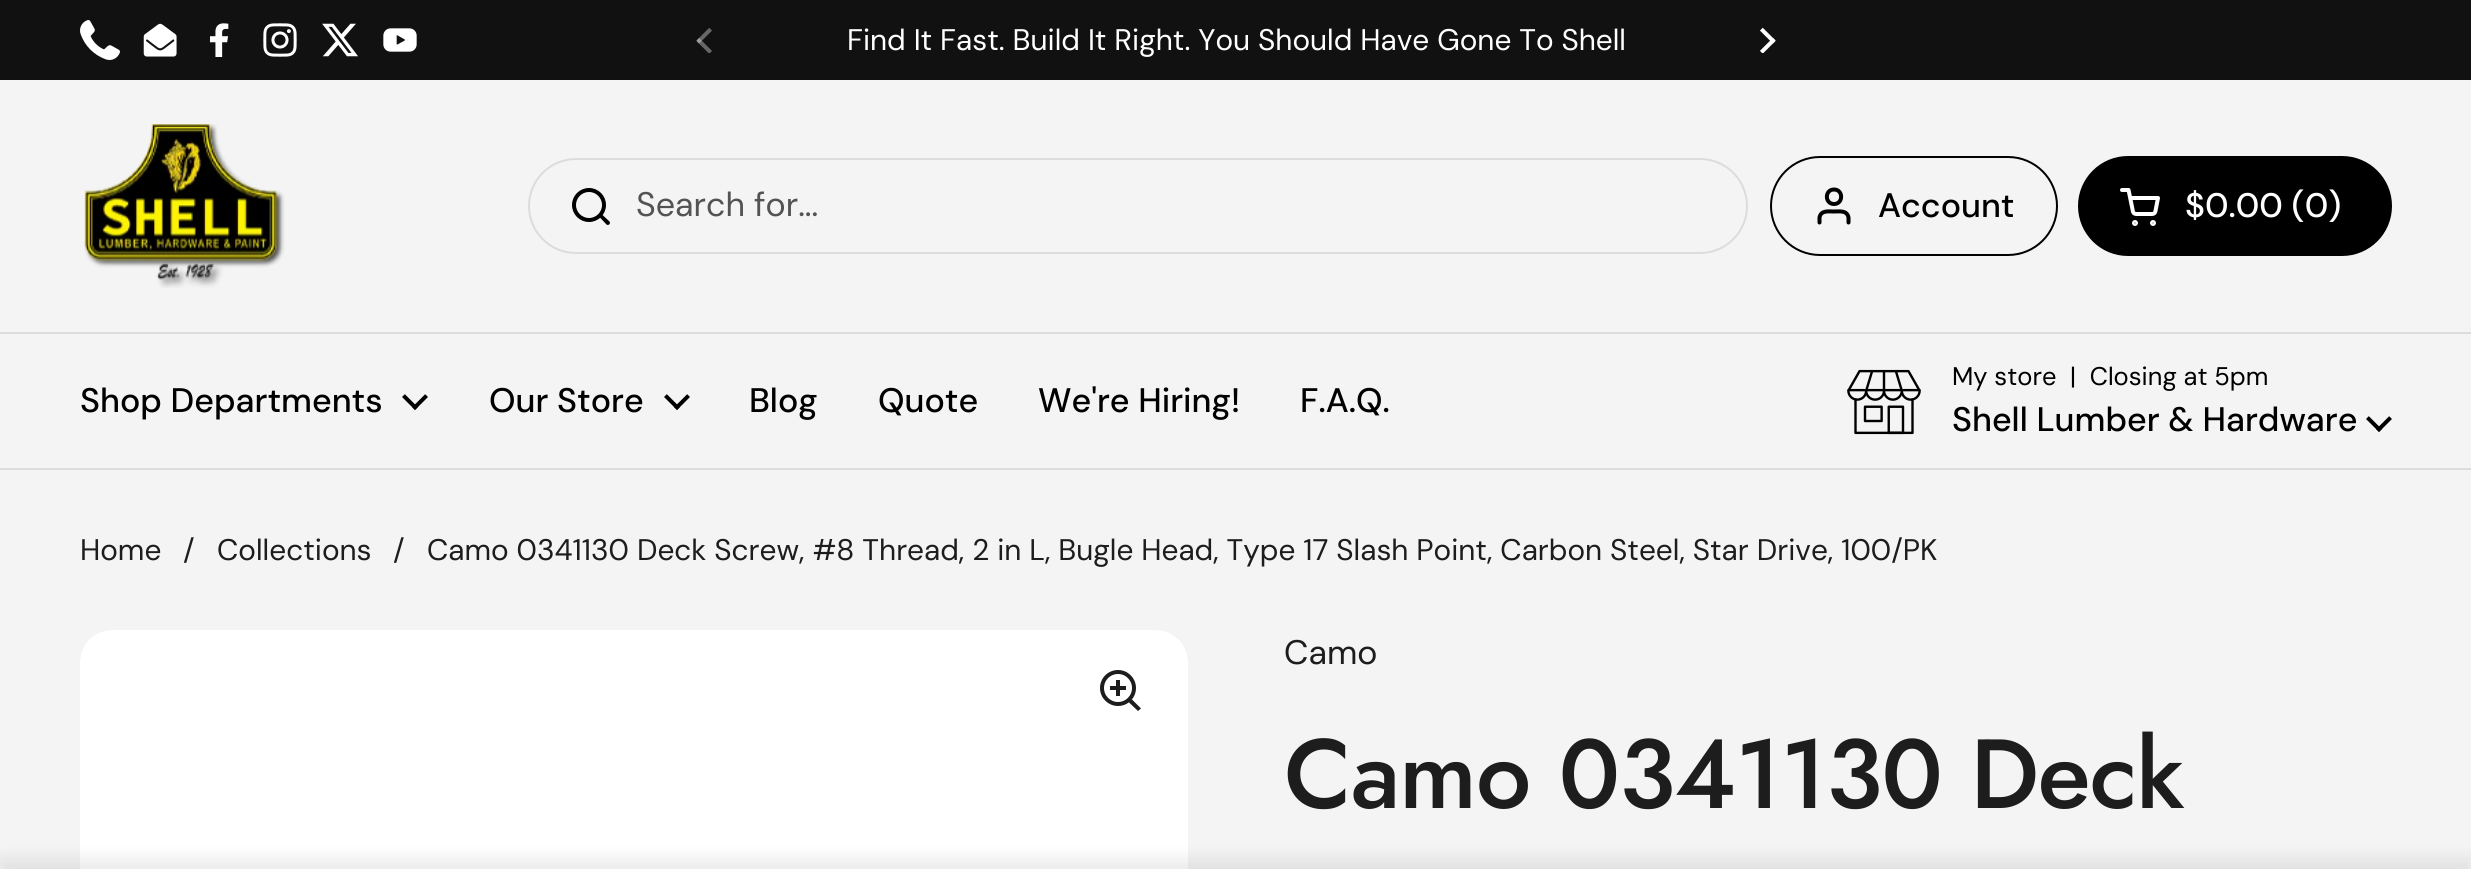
import math
import cairo



def draw_spaced(context, x, y, s, letter, word):
    context.move_to(x, y)
    for ch in s:
        context.show_text(ch)
        context.rel_move_to(letter + word * (ch == ' '), 0)


def rounded_rect(context, x, y, w, h, r):
    context.new_sub_path()
    for i, (u, v) in enumerate([(x + w - r, y + h - r), (x + r, y + h - r), (x + r, y + r), (x + w - r, y + r)]):
        context.arc(u, v, r, i * math.pi / 2, (i + 1) * math.pi / 2)
    context.close_path()


def draw_shadow(context, x, y, w, h, r, blur, alpha):
    context.push_group_with_content(cairo.Content.ALPHA)
    context.set_operator(cairo.Operator.SOURCE)
    for i in range(15, -16, -2):
        e = blur * i / 6
        if min(w, h) + 2 * e > 0:
            context.set_source_rgba(0, 0, 0, alpha * math.erfc((i - 1) / 8.5) / 2)
            rounded_rect(context, x - e, y - e, w + 2 * e, h + 2 * e, max(0, min(r + e + blur * .6, min(w, h) / 2 + e)))
            context.fill()
    context.mask(context.pop_group())


def draw_image(context, path, x, y, w, h):
    context.save()
    context.set_source_surface(cairo.ImageSurface.create_from_png(path), x, y)
    context.rectangle(x, y, w, h)
    context.fill()
    context.restore()


def draw(context):
    context.set_source_rgb(244 / 255, 244 / 255, 244 / 255)
    context.paint()
    context.set_source_rgb(17 / 255, 17 / 255, 17 / 255)
    context.rectangle(0, 0, 2471, 80)
    context.fill()
    draw_image(context, "images/1.png", 80, 20, 40, 40)
    draw_image(context, "images/2.png", 143, 23, 34, 34)
    draw_image(context, "images/3.png", 210, 23, 19, 34)
    draw_image(context, "images/4.png", 263, 23, 34, 34)
    draw_image(context, "images/5.png", 322, 23, 36, 34)
    draw_image(context, "images/6.png", 383, 28, 34, 24)
    draw_image(context, "images/7.png", 696, 28, 16, 25)
    draw_image(context, "images/8.png", 1760, 27, 16, 26)
    context.set_source_rgb(220 / 255, 220 / 255, 220 / 255)
    context.rectangle(0, 332, 2471, 2)
    context.fill()
    draw_image(context, "images/9.png", 84, 124, 201, 164)
    rounded_rect(context, 529, 159, 1218, 94, 47)
    context.stroke()
    context.arc(589, 205, 15, 0, 2 * math.pi)
    context.set_source_rgb(0, 0, 0)
    context.set_line_width(4)
    context.stroke()
    context.new_path()
    context.move_to(602, 214.5)
    context.line_to(601, 213)
    context.line_to(598, 216)
    context.line_to(599.5, 217)
    context.close_path()
    context.move_to(606.5, 224.5)
    context.curve_to(608.5, 226, 611, 223.5, 609.5, 221.5)
    context.close_path()
    context.move_to(599.5, 217)
    context.line_to(606.5, 224.5)
    context.line_to(609.5, 221.5)
    context.line_to(602, 214.5)
    context.close_path()
    context.fill()
    rounded_rect(context, 1771, 157, 286, 98, 49)
    context.set_line_width(2)
    context.stroke()
    context.new_path()
    context.move_to(1848.5, 222.5)
    context.line_to(1848.5, 217.5)
    context.curve_to(1847, 210, 1839.5, 211.5, 1834, 211.5)
    context.curve_to(1828.5, 211.5, 1821, 210, 1819.5, 217.5)
    context.line_to(1819.5, 222.5)
    context.move_to(1834, 204)
    context.curve_to(1843.5, 204, 1843.5, 189.5, 1834, 189.5)
    context.curve_to(1824.5, 189.5, 1824.5, 204, 1834, 204)
    context.close_path()
    context.set_line_width(4)
    context.set_line_cap(cairo.LineCap.ROUND)
    context.set_line_join(cairo.LineJoin.ROUND)
    context.stroke()
    rounded_rect(context, 2079, 157, 312, 98, 49)
    context.fill_preserve()
    context.set_line_width(2)
    context.set_line_cap(cairo.LineCap.BUTT)
    context.set_line_join(cairo.LineJoin.MITER)
    context.stroke()
    draw_image(context, "images/10.png", 2120, 188, 40, 38)
    context.set_source_rgb(220 / 255, 220 / 255, 220 / 255)
    context.rectangle(0, 468, 2471, 2)
    context.fill()
    draw_image(context, "images/11.png", 402, 394, 26, 16)
    draw_image(context, "images/11.png", 664, 394, 26, 16)
    draw_image(context, "images/12.png", 1847, 369, 74, 66)
    draw_image(context, "images/11.png", 2366, 416, 26, 16)
    draw_image(context, "images/13.png", 80, 630, 1108, 239)
    context.arc(1118, 688, 16, 0, 2 * math.pi)
    context.set_source_rgb(29 / 255, 29 / 255, 29 / 255)
    context.set_line_width(4)
    context.stroke()
    context.rectangle(1116, 680, 4, 16)
    context.fill()
    context.rectangle(1110, 686, 16, 4)
    context.fill()
    context.new_path()
    context.move_to(1128.5, 702)
    context.line_to(1131.5, 699)
    context.line_to(1141, 708.5)
    context.line_to(1138, 711)
    context.close_path()
    context.fill()
    context.set_source_rgb(0, 0, 0)
    draw_shadow(context, 0, 858, 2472, 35, 0, 8, 0.08)
    context.select_font_face("DM Sans")
    context.set_font_size(29.75)
    context.set_source_rgb(1, 1, 1)
    context.move_to(847, 50)
    context.show_text("Find It Fast. Build It Right. You Should Have Gone To Shell")
    context.select_font_face("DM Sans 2")
    context.set_font_size(34)
    context.set_source_rgb(83 / 255, 83 / 255, 83 / 255)
    context.move_to(636, 216)
    context.show_text("Search for...")
    context.select_font_face("DM Sans Medium")
    context.set_source_rgb(0, 0, 0)
    context.move_to(1878, 217)
    context.show_text("Account")
    context.set_source_rgb(1, 1, 1)
    context.move_to(2185, 217)
    context.show_text("$0.00 (0)")
    context.set_source_rgb(0, 0, 0)
    context.move_to(80, 412)
    context.show_text("Shop Departments")
    context.move_to(489, 412)
    context.show_text("Our Store")
    context.move_to(749, 412)
    context.show_text("Blog")
    context.move_to(878, 412)
    context.show_text("Quote")
    context.move_to(1038, 412)
    context.show_text("We're Hiring!")
    context.move_to(1300, 412)
    context.show_text("F.A.Q.")
    context.select_font_face("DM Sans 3")
    context.set_font_size(25.5)
    context.move_to(1952, 385)
    context.show_text("My store  |  Closing at 5pm")
    context.select_font_face("DM Sans Medium")
    context.set_font_size(34)
    context.move_to(1952, 431)
    context.show_text("Shell Lumber & Hardware")
    context.select_font_face("DM Sans")
    context.set_font_size(29.75)
    context.set_source_rgb(29 / 255, 29 / 255, 29 / 255)
    context.move_to(80, 560)
    context.show_text("Home")
    context.move_to(183, 560)
    context.show_text("/")
    context.move_to(217, 560)
    context.show_text("Collections")
    context.move_to(393, 560)
    context.show_text("/")
    context.move_to(427, 560)
    context.show_text("Camo 0341130 Deck Screw, #8 Thread, 2 in L, Bugle Head, Type 17 Slash Point, Carbon Steel, Star Drive, 100/PK")
    context.select_font_face("DM Sans 2")
    context.set_font_size(34)
    context.move_to(1284, 664)
    context.show_text("Camo")
    context.select_font_face("Jost Medium")
    context.set_font_size(98)
    draw_spaced(context, 1284, 808, "Camo 0341130 Deck", -1, 0)


surface = cairo.ImageSurface(cairo.Format.RGB24, 2471, 869)
context = cairo.Context(surface)
options = cairo.FontOptions()
options.set_hint_metrics(cairo.HintMetrics.OFF)
options.set_hint_style(cairo.HintStyle.NONE)
context.set_font_options(options)
context.set_miter_limit(4)
draw(context)
surface.write_to_png("out.png")
